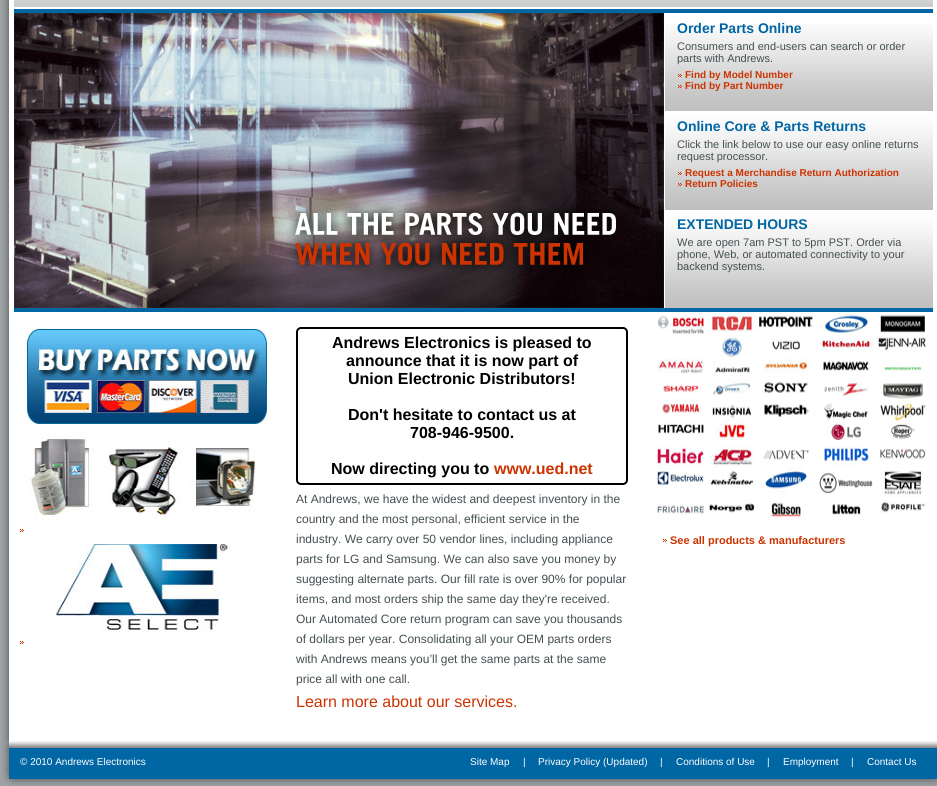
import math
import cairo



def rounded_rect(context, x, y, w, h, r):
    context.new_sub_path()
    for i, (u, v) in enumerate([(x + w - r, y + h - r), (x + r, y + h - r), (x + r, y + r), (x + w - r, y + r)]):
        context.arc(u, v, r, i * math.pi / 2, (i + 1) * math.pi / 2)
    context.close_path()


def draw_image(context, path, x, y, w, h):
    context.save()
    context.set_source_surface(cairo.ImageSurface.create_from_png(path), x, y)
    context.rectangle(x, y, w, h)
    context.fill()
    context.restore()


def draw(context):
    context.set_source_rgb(158 / 255, 162 / 255, 164 / 255)
    context.paint()
    draw_image(context, "images/1.png", 2, 0, 935, 741)
    draw_image(context, "images/2.png", 14, 0, 919, 7)
    context.set_source_rgb(0, 102 / 255, 164 / 255)
    context.rectangle(14, 9, 919, 4)
    context.fill()
    context.rectangle(14, 308, 919, 4)
    context.fill()
    draw_image(context, "images/3.png", 14, 13, 650, 295)
    draw_image(context, "images/4.png", 665, 24, 268, 284)
    draw_image(context, "images/5.png", 678, 74, 4, 3)
    draw_image(context, "images/6.png", 678, 85, 4, 3)
    draw_image(context, "images/7.png", 678, 172, 4, 3)
    draw_image(context, "images/8.png", 678, 183, 4, 3)
    draw_image(context, "images/9.png", 27, 328, 240, 192)
    draw_image(context, "images/10.png", 20, 529, 4, 3)
    draw_image(context, "images/11.png", 56, 544, 177, 88)
    draw_image(context, "images/10.png", 20, 641, 4, 3)
    rounded_rect(context, 297, 328, 330, 156, 4)
    context.set_source_rgb(0, 0, 0)
    context.stroke()
    draw_image(context, "images/12.png", 657, 312, 269, 208)
    draw_image(context, "images/10.png", 663, 539, 4, 3)
    draw_image(context, "images/13.png", 2, 741, 935, 45)
    context.select_font_face("Liberation Sans", cairo.FontSlant.NORMAL, cairo.FontWeight.BOLD)
    context.set_font_size(14)
    context.set_source_rgb(0, 102 / 255, 164 / 255)
    context.move_to(677, 33)
    context.show_text("Order Parts Online")
    context.select_font_face("Liberation Sans")
    context.set_font_size(11)
    context.set_source_rgb(68 / 255, 79 / 255, 81 / 255)
    context.move_to(677, 50)
    context.show_text("Consumers and end-users can search or order")
    context.move_to(677, 62)
    context.show_text("parts with Andrews.")
    context.select_font_face("Liberation Sans", cairo.FontSlant.NORMAL, cairo.FontWeight.BOLD)
    context.set_font_size(10)
    context.set_source_rgb(204 / 255, 51 / 255, 0)
    context.move_to(685, 78)
    context.show_text("Find by Model Number")
    context.move_to(685, 89)
    context.show_text("Find by Part Number")
    context.set_font_size(14)
    context.set_source_rgb(0, 102 / 255, 164 / 255)
    context.move_to(677, 131)
    context.show_text("Online Core & Parts Returns")
    context.select_font_face("Liberation Sans")
    context.set_font_size(11)
    context.set_source_rgb(68 / 255, 79 / 255, 81 / 255)
    context.move_to(677, 148)
    context.show_text("Click the link below to use our easy online returns")
    context.move_to(677, 160)
    context.show_text("request processor.")
    context.select_font_face("Liberation Sans", cairo.FontSlant.NORMAL, cairo.FontWeight.BOLD)
    context.set_font_size(10)
    context.set_source_rgb(204 / 255, 51 / 255, 0)
    context.move_to(685, 176)
    context.show_text("Request a Merchandise Return Authorization")
    context.move_to(685, 187)
    context.show_text("Return Policies")
    context.set_font_size(14)
    context.set_source_rgb(0, 102 / 255, 164 / 255)
    context.move_to(677, 229)
    context.show_text("EXTENDED HOURS")
    context.select_font_face("Liberation Sans")
    context.set_font_size(11)
    context.set_source_rgb(68 / 255, 79 / 255, 81 / 255)
    context.move_to(677, 246)
    context.show_text("We are open 7am PST to 5pm PST. Order via")
    context.move_to(677, 258)
    context.show_text("phone, Web, or automated connectivity to your")
    context.move_to(677, 270)
    context.show_text("backend systems.")
    context.select_font_face("Liberation Sans", cairo.FontSlant.NORMAL, cairo.FontWeight.BOLD)
    context.set_font_size(16)
    context.set_source_rgb(0, 0, 0)
    context.move_to(332, 348)
    context.show_text("Andrews Electronics is pleased to")
    context.move_to(346, 366)
    context.show_text("announce that it is now part of")
    context.move_to(348, 384)
    context.show_text("Union Electronic Distributors!")
    context.move_to(348, 420)
    context.show_text("Don't hesitate to contact us at")
    context.move_to(410, 438)
    context.show_text("708-946-9500.")
    context.move_to(331, 474)
    context.show_text("Now directing you to")
    context.set_source_rgb(204 / 255, 51 / 255, 0)
    context.move_to(494, 474)
    context.show_text("www.ued.net")
    context.select_font_face("Liberation Sans")
    context.set_font_size(12)
    context.set_source_rgb(68 / 255, 79 / 255, 81 / 255)
    context.move_to(296, 503)
    context.show_text("At Andrews, we have the widest and deepest inventory in the")
    context.move_to(296, 523)
    context.show_text("country and the most personal, efficient service in the")
    context.move_to(296, 543)
    context.show_text("industry. We carry over 50 vendor lines, including appliance")
    context.move_to(296, 563)
    context.show_text("parts for LG and Samsung. We can also save you money by")
    context.move_to(296, 583)
    context.show_text("suggesting alternate parts. Our fill rate is over 90% for popular")
    context.move_to(296, 603)
    context.show_text("items, and most orders ship the same day they're received.")
    context.move_to(296, 623)
    context.show_text("Our Automated Core return program can save you thousands")
    context.move_to(296, 643)
    context.show_text("of dollars per year. Consolidating all your OEM parts orders")
    context.move_to(296, 663)
    context.show_text("with Andrews means you’ll get the same parts at the same")
    context.move_to(296, 683)
    context.show_text("price all with one call.")
    context.set_font_size(16)
    context.set_source_rgb(204 / 255, 51 / 255, 0)
    context.move_to(296, 707)
    context.show_text("Learn more about our services.")
    context.select_font_face("Liberation Sans", cairo.FontSlant.NORMAL, cairo.FontWeight.BOLD)
    context.set_font_size(11)
    context.move_to(670, 544)
    context.show_text("See all products & manufacturers")
    context.select_font_face("Liberation Sans")
    context.set_font_size(10)
    context.set_source_rgb(1, 1, 1)
    context.move_to(20, 765)
    context.show_text("© 2010 Andrews Electronics")
    context.move_to(470, 765)
    context.show_text("Site Map")
    context.move_to(523, 765)
    context.show_text("|")
    context.move_to(538, 765)
    context.show_text("Privacy Policy (Updated)")
    context.move_to(660, 765)
    context.show_text("|")
    context.move_to(676, 765)
    context.show_text("Conditions of Use")
    context.move_to(767, 765)
    context.show_text("|")
    context.move_to(783, 765)
    context.show_text("Employment")
    context.move_to(851, 765)
    context.show_text("|")
    context.move_to(867, 765)
    context.show_text("Contact Us")


surface = cairo.ImageSurface(cairo.Format.RGB24, 937, 786)
context = cairo.Context(surface)
options = cairo.FontOptions()
options.set_hint_metrics(cairo.HintMetrics.OFF)
options.set_hint_style(cairo.HintStyle.NONE)
context.set_font_options(options)
context.set_miter_limit(4)
draw(context)
surface.write_to_png("out.png")
